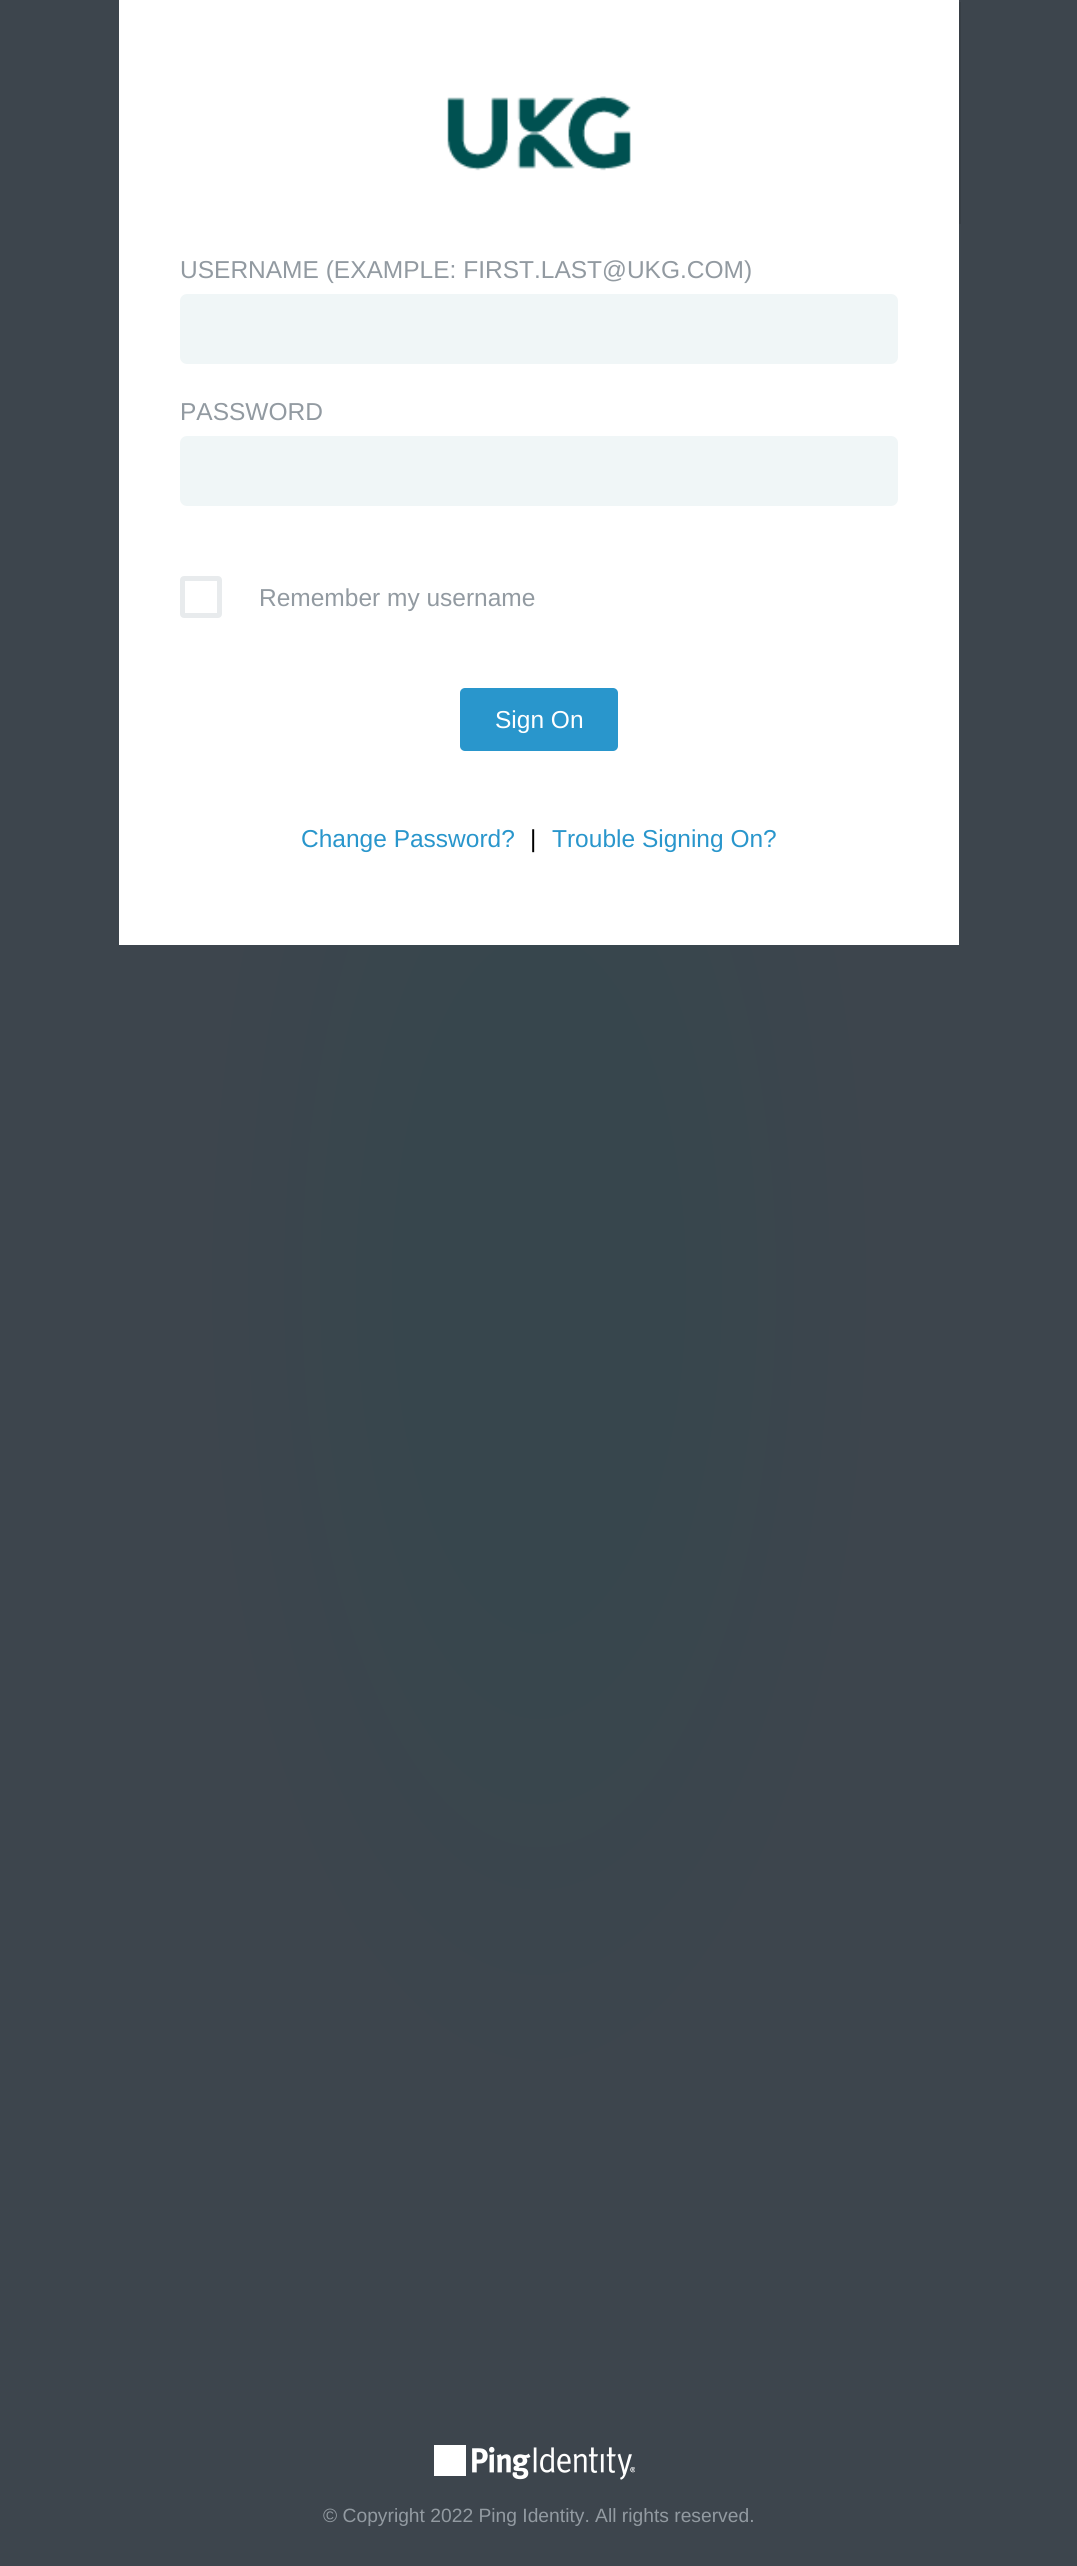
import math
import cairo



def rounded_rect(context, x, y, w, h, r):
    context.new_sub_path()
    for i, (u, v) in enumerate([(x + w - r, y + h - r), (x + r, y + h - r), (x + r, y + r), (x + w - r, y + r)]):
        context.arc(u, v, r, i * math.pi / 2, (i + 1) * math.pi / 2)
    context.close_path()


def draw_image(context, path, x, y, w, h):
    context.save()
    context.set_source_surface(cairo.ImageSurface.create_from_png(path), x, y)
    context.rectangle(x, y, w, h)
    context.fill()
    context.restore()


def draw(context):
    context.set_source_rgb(1, 1, 1)
    context.paint()
    gradient = cairo.RadialGradient(0, 0, 0, 0, 0, 1)
    gradient.set_matrix(cairo.Matrix(1 / 431, 0, 0, 1 / 1027, -1 * 539 / 431, -1 * 1284 / 1027))
    gradient.add_color_stop_rgba(0.3, 55 / 255, 70 / 255, 77 / 255, 1)
    gradient.add_color_stop_rgba(0.8, 61 / 255, 69 / 255, 77 / 255, 1)
    context.set_source(gradient)
    context.rectangle(0, 0, 1077, 2566)
    context.fill()
    context.set_source_rgb(55 / 255, 62 / 255, 69 / 255)
    context.new_path()
    context.move_to(121, 222)
    context.line_to(121, 224)
    context.line_to(961, 224)
    context.line_to(961, 2)
    context.line_to(959, 2)
    context.line_to(959, 222)
    context.close_path()
    context.fill()
    context.set_source_rgb(1, 1, 1)
    context.rectangle(119, 0, 840, 945)
    context.fill()
    draw_image(context, "images/1.png", 447, 96, 184, 75)
    context.set_source_rgb(240 / 255, 246 / 255, 247 / 255)
    rounded_rect(context, 181, 295, 716, 68, 6)
    context.fill_preserve()
    context.stroke()
    rounded_rect(context, 181, 437, 716, 68, 6)
    context.fill_preserve()
    context.stroke()
    rounded_rect(context, 182.5, 578.5, 37, 37, 1.5)
    context.set_source_rgb(232 / 255, 235 / 255, 237 / 255)
    context.set_line_width(5)
    context.stroke()
    context.set_source_rgb(41 / 255, 150 / 255, 204 / 255)
    rounded_rect(context, 460, 688, 158, 63, 5)
    context.fill()
    draw_image(context, "images/2.png", 434, 2445, 201, 35)
    context.select_font_face("Liberation Sans")
    context.set_font_size(24.5)
    context.set_source_rgb(146 / 255, 154 / 255, 161 / 255)
    context.move_to(180, 278)
    context.show_text("USERNAME (EXAMPLE: FIRST.LAST@UKG.COM)")
    context.move_to(180, 420)
    context.show_text("PASSWORD")
    context.move_to(259, 606)
    context.show_text("Remember my username")
    context.set_source_rgb(1, 1, 1)
    context.move_to(495, 728)
    context.show_text("Sign On")
    context.set_source_rgb(41 / 255, 150 / 255, 204 / 255)
    context.move_to(301, 847)
    context.show_text("Change Password?")
    context.set_source_rgb(0, 0, 0)
    context.move_to(530, 847)
    context.show_text("|")
    context.set_source_rgb(41 / 255, 150 / 255, 204 / 255)
    context.move_to(552, 847)
    context.show_text("Trouble Signing On?")
    context.set_font_size(19.25)
    context.set_source_rgb(146 / 255, 154 / 255, 161 / 255)
    context.move_to(323, 2522)
    context.show_text("© Copyright 2022 Ping Identity. All rights reserved.")


surface = cairo.ImageSurface(cairo.Format.RGB24, 1077, 2566)
context = cairo.Context(surface)
options = cairo.FontOptions()
options.set_hint_metrics(cairo.HintMetrics.OFF)
options.set_hint_style(cairo.HintStyle.NONE)
context.set_font_options(options)
context.set_miter_limit(4)
draw(context)
surface.write_to_png("out.png")
